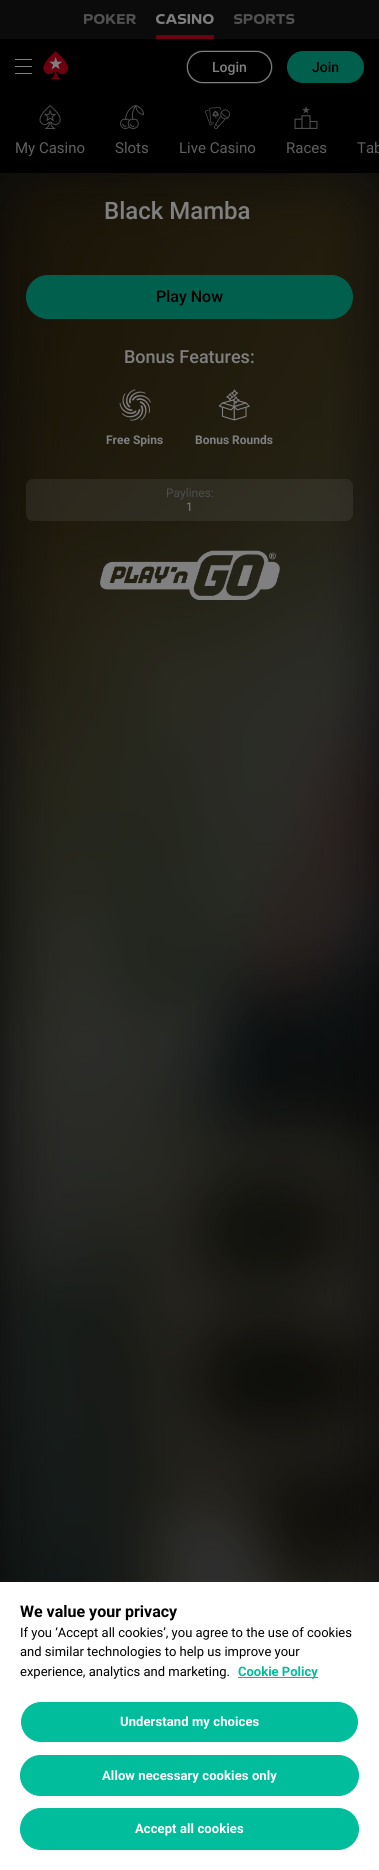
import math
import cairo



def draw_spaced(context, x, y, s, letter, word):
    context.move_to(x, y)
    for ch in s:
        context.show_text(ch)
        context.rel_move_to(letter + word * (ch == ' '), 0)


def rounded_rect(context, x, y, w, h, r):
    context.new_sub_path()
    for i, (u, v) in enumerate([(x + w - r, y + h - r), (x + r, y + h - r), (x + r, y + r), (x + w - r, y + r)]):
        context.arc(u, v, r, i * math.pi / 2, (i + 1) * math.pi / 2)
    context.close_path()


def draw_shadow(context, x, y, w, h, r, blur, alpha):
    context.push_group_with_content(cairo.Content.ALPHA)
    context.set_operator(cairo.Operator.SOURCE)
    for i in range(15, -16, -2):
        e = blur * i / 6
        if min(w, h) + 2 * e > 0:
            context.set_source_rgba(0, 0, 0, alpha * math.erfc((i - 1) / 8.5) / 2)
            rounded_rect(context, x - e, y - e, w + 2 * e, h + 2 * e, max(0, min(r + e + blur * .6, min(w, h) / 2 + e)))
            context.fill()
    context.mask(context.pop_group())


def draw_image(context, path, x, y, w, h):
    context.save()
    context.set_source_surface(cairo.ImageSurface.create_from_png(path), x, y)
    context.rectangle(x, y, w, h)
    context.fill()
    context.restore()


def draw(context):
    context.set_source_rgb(0, 0, 0)
    context.paint()
    context.set_source_rgb(11 / 255, 11 / 255, 11 / 255)
    context.rectangle(0, 0, 379, 39)
    context.fill()
    draw_image(context, "images/1.png", 84, 14, 52, 10)
    context.set_source_rgb(108 / 255, 0, 17 / 255)
    context.rectangle(156, 35, 58, 4)
    context.fill()
    draw_image(context, "images/2.png", 156, 14, 58, 10)
    draw_image(context, "images/3.png", 234, 14, 61, 10)
    context.set_source_rgb(128 / 255, 128 / 255, 128 / 255)
    context.rectangle(15, 59, 17, 1)
    context.fill()
    context.rectangle(15, 66, 17, 1)
    context.fill()
    context.rectangle(15, 73, 17, 1)
    context.fill()
    draw_image(context, "images/4.png", 43, 51, 25, 28)
    context.set_source_rgb(128 / 255, 128 / 255, 128 / 255)
    draw_shadow(context, 187, 51, 85, 32, 16, 0.5, 1)
    context.set_source_rgb(0, 0, 0)
    rounded_rect(context, 187.5, 51.5, 84, 31, 15.5)
    context.fill_preserve()
    context.set_source_rgb(128 / 255, 128 / 255, 128 / 255)
    context.set_line_width(1)
    context.stroke()
    context.set_source_rgb(1 / 255, 95 / 255, 78 / 255)
    rounded_rect(context, 287, 51, 77, 32, 16)
    context.fill()
    draw_image(context, "images/5.png", 39, 105, 22, 24)
    draw_image(context, "images/6.png", 120, 105, 24, 24)
    draw_image(context, "images/7.png", 205, 107, 25, 22)
    draw_image(context, "images/8.png", 294, 106, 24, 23)
    context.set_source_rgb(11 / 255, 11 / 255, 11 / 255)
    context.rectangle(0, 173, 379, 1409)
    context.fill()
    draw_image(context, "images/9.png", 0, 173, 379, 1409)
    context.set_source_rgb(1 / 255, 95 / 255, 78 / 255)
    rounded_rect(context, 26, 275, 327, 44, 22)
    context.fill()
    draw_image(context, "images/10.png", 119, 389, 32, 32)
    draw_image(context, "images/11.png", 218, 389, 32, 32)
    context.set_source_rgba(128 / 255, 128 / 255, 128 / 255, 0.15)
    rounded_rect(context, 26, 479, 327, 42, 7)
    context.fill()
    draw_image(context, "images/12.png", 100, 550, 180, 50)
    context.set_source_rgb(1, 1, 1)
    context.rectangle(0, 1582, 379, 288)
    context.fill()
    context.set_source_rgb(2 / 255, 189 / 255, 156 / 255)
    context.rectangle(238, 1677, 80, 1)
    context.fill()
    rounded_rect(context, 20.5, 1701.5, 338, 41, 20.5)
    context.fill_preserve()
    context.set_source_rgb(1, 1, 1)
    context.stroke()
    context.set_source_rgb(2 / 255, 189 / 255, 156 / 255)
    rounded_rect(context, 20.5, 1755.5, 338, 40, 20)
    context.fill_preserve()
    context.stroke()
    rounded_rect(context, 20.5, 1808.5, 338, 41, 20.5)
    context.fill_preserve()
    context.stroke()
    context.select_font_face("Roboto Medium")
    context.set_font_size(14)
    context.set_source_rgb(128 / 255, 128 / 255, 128 / 255)
    context.move_to(212, 72)
    context.show_text("Login")
    context.set_source_rgb(0, 0, 0)
    context.move_to(312, 72)
    context.show_text("Join")
    context.select_font_face("Roboto")
    context.set_font_size(15)
    context.set_source_rgb(96 / 255, 96 / 255, 96 / 255)
    context.move_to(15, 153)
    context.show_text("My Casino")
    context.move_to(115, 153)
    context.show_text("Slots")
    context.move_to(179, 153)
    context.show_text("Live Casino")
    context.move_to(286, 153)
    context.show_text("Races")
    context.move_to(357, 153)
    context.show_text("Tab")
    context.select_font_face("Roboto Medium")
    context.set_font_size(24)
    context.set_source_rgb(128 / 255, 128 / 255, 128 / 255)
    context.move_to(104, 219)
    context.show_text("Black Mamba")
    context.set_font_size(16)
    context.set_source_rgb(0, 0, 0)
    context.move_to(156, 302)
    context.show_text("Play Now")
    context.set_font_size(18)
    context.set_source_rgb(128 / 255, 128 / 255, 128 / 255)
    context.move_to(124, 363)
    context.show_text("Bonus Features:")
    context.select_font_face("Roboto", cairo.FontSlant.NORMAL, cairo.FontWeight.BOLD)
    context.set_font_size(12)
    context.move_to(106, 444)
    context.show_text("Free Spins")
    context.move_to(195, 444)
    context.show_text("Bonus Rounds")
    context.select_font_face("Roboto")
    context.set_source_rgb(77 / 255, 77 / 255, 77 / 255)
    context.move_to(166, 497)
    context.show_text("Paylines:")
    context.set_source_rgb(128 / 255, 128 / 255, 128 / 255)
    context.move_to(186, 511)
    context.show_text("1")
    context.select_font_face("Roboto", cairo.FontSlant.NORMAL, cairo.FontWeight.BOLD)
    context.set_font_size(16)
    context.set_source_rgb(0, 0, 0)
    context.move_to(20, 1617)
    context.show_text("We value your privacy")
    context.select_font_face("Roboto")
    context.set_font_size(13)
    context.move_to(20, 1637)
    context.show_text("If you ‘Accept all cookies’, you agree to the use of cookies")
    context.move_to(20, 1656)
    context.show_text("and similar technologies to help us improve your")
    context.move_to(20, 1676)
    context.show_text("experience, analytics and marketing.")
    context.select_font_face("Roboto", cairo.FontSlant.NORMAL, cairo.FontWeight.BOLD)
    context.set_source_rgb(2 / 255, 189 / 255, 156 / 255)
    context.move_to(238, 1676)
    context.show_text("Cookie Policy")
    context.set_source_rgb(1, 1, 1)
    draw_spaced(context, 120, 1726, "Understand my choices", 0.1, 0)
    draw_spaced(context, 102, 1780, "Allow necessary cookies only", 0.1, 0)
    draw_spaced(context, 135, 1833, "Accept all cookies", 0.1, 0)


surface = cairo.ImageSurface(cairo.Format.RGB24, 379, 1870)
context = cairo.Context(surface)
options = cairo.FontOptions()
options.set_hint_metrics(cairo.HintMetrics.OFF)
options.set_hint_style(cairo.HintStyle.NONE)
context.set_font_options(options)
context.set_miter_limit(4)
draw(context)
surface.write_to_png("out.png")
